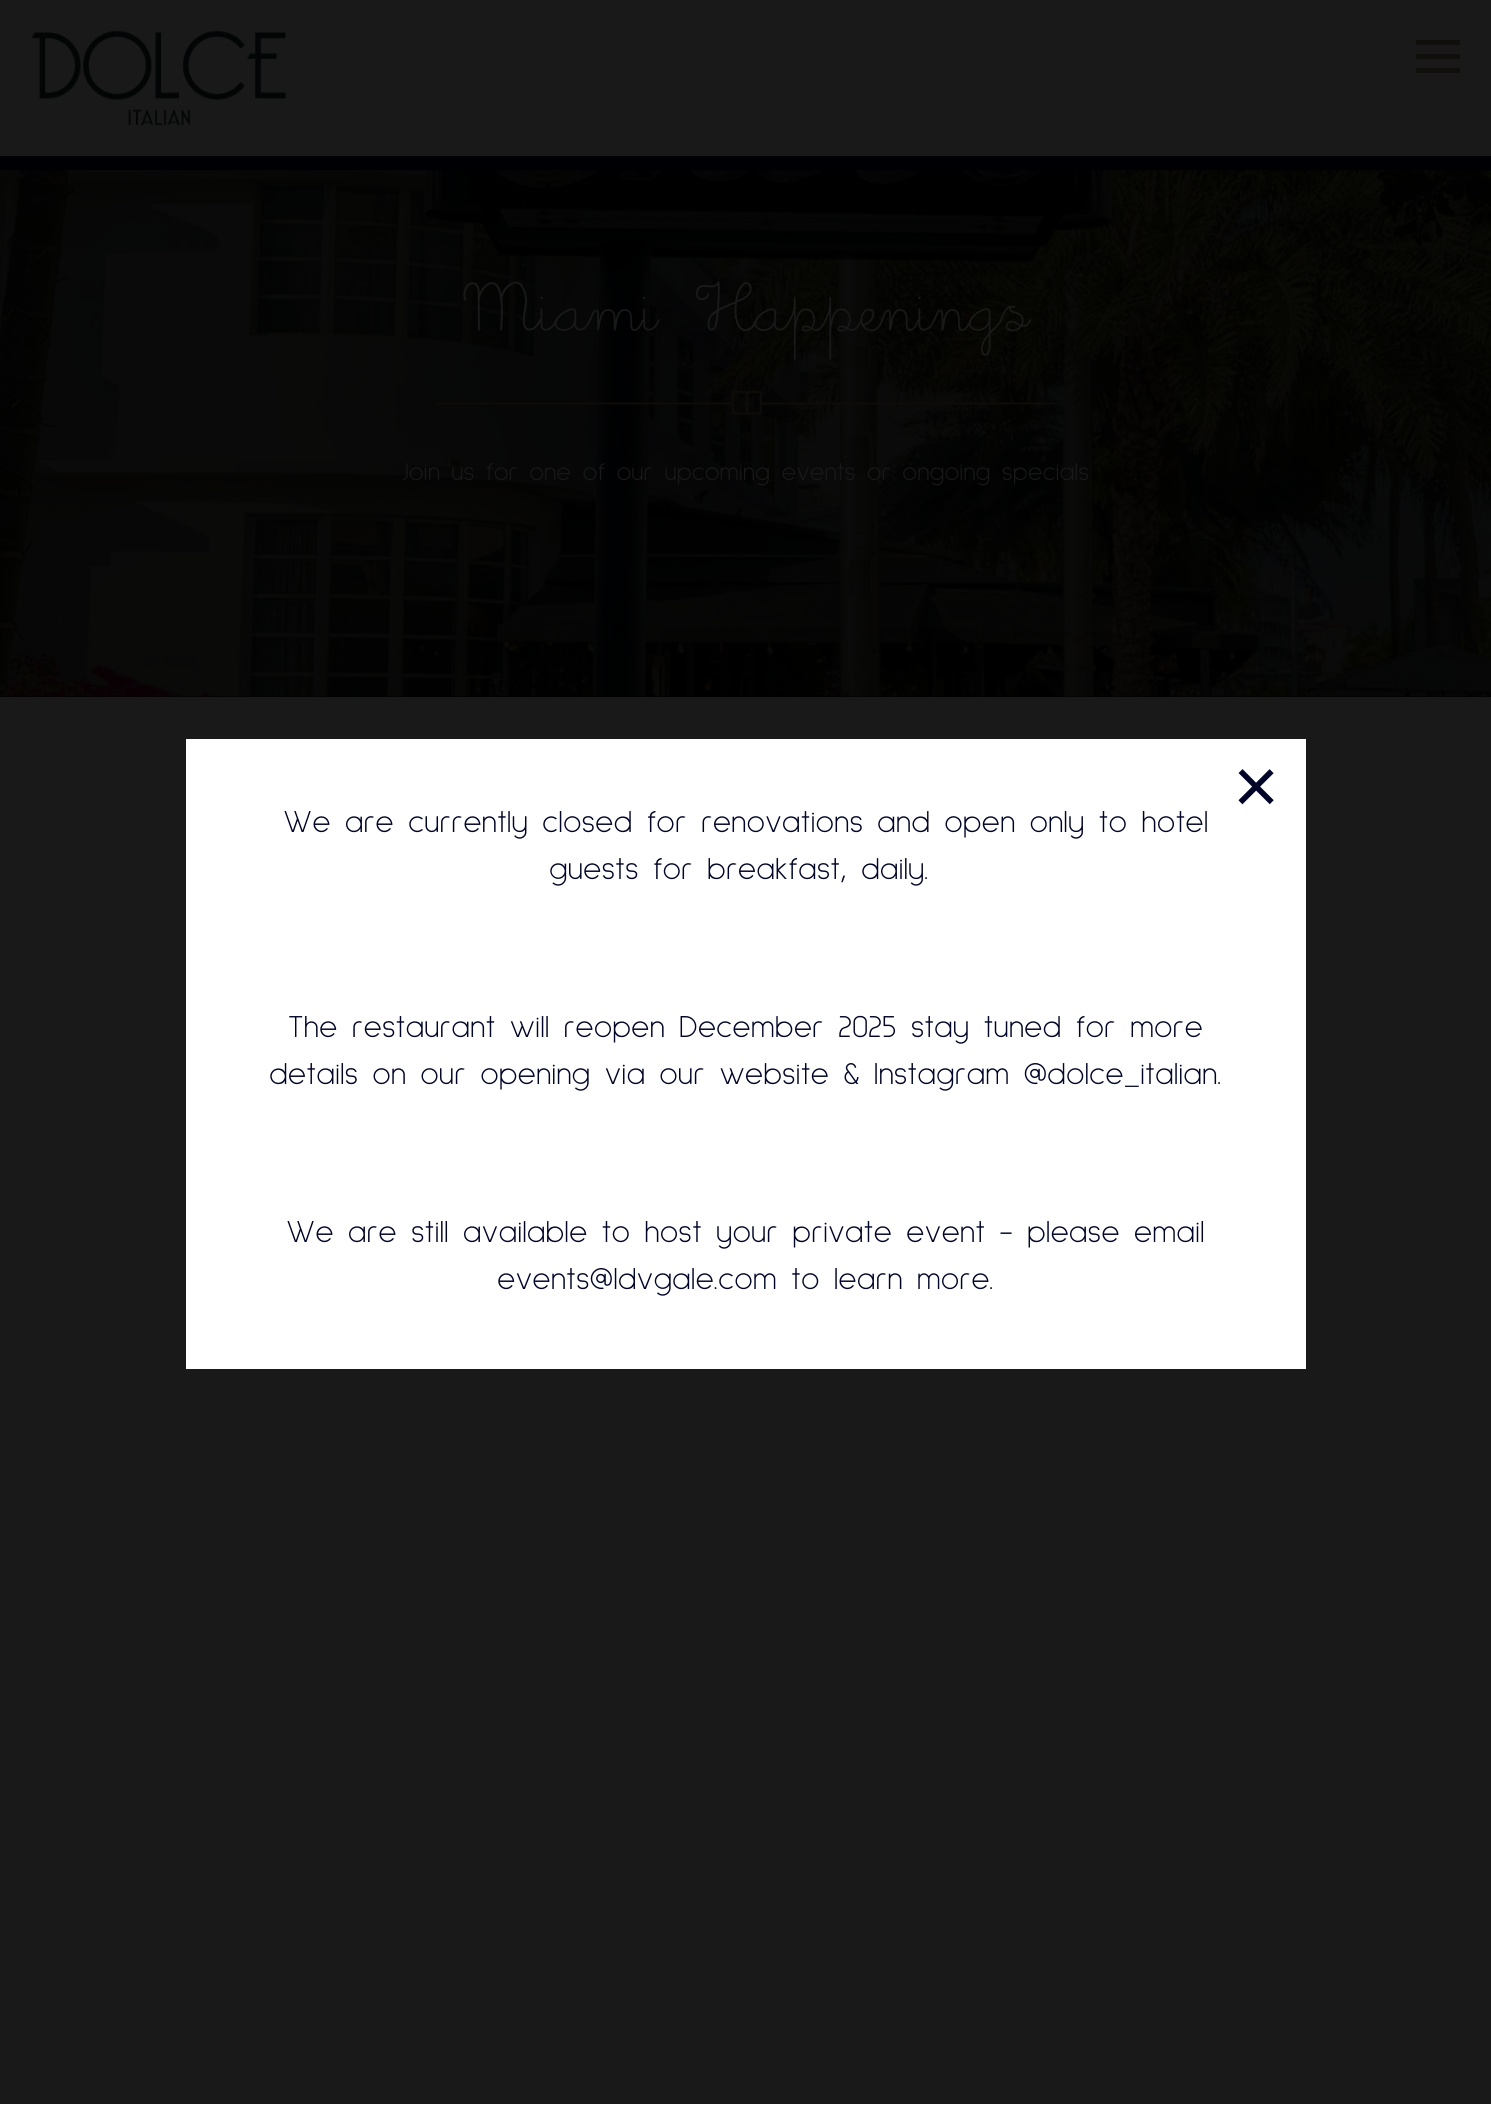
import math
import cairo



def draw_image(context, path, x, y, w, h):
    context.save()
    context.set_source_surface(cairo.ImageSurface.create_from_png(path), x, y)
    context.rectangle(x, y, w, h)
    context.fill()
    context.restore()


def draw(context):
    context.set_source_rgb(25 / 255, 25 / 255, 25 / 255)
    context.paint()
    context.set_source_rgb(0, 0, 4 / 255)
    context.rectangle(0, 156, 1491, 14)
    context.fill()
    draw_image(context, "images/1.png", 31, 30, 256, 96)
    context.set_source_rgb(17 / 255, 15 / 255, 11 / 255)
    context.rectangle(1416, 40, 44, 5)
    context.fill()
    context.rectangle(1416, 54, 44, 5)
    context.fill()
    context.rectangle(1416, 68, 44, 5)
    context.fill()
    context.set_source_rgb(0, 0, 1 / 255)
    context.rectangle(0, 170, 1491, 527)
    context.fill()
    draw_image(context, "images/2.png", 0, 170, 1491, 527)
    draw_image(context, "images/3.png", 436, 390, 621, 25)
    context.set_source_rgb(1, 1, 1)
    context.rectangle(186, 739, 1120, 630)
    context.fill()
    context.select_font_face("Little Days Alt")
    context.set_font_size(71)
    context.set_source_rgb(25 / 255, 25 / 255, 25 / 255)
    context.move_to(462, 330)
    context.show_text("Miami Happenings")
    context.select_font_face("Sulphur Point Light")
    context.set_font_size(25.2)
    context.move_to(402, 480)
    context.show_text("Join us for one of our upcoming events or ongoing specials")
    context.select_font_face("Liberation Sans")
    context.set_font_size(79)
    context.set_source_rgb(0, 4 / 255, 38 / 255)
    context.move_to(1233, 813)
    context.show_text("×")
    context.select_font_face("Sulphur Point Light")
    context.set_font_size(31.5)
    context.move_to(283, 832)
    context.show_text("We are currently closed for renovations and open only to hotel")
    context.move_to(549, 879)
    context.show_text("guests for breakfast, daily.")
    context.move_to(288, 1037)
    context.show_text("The restaurant will reopen December 2025 stay tuned for more")
    context.move_to(269, 1084)
    context.show_text("details on our opening via our website & Instagram @dolce_italian.")
    context.move_to(286, 1242)
    context.show_text("We are still available to host your private event - please email")
    context.move_to(497, 1289)
    context.show_text("events@ldvgale.com to learn more.")


surface = cairo.ImageSurface(cairo.Format.RGB24, 1491, 2104)
context = cairo.Context(surface)
options = cairo.FontOptions()
options.set_hint_metrics(cairo.HintMetrics.OFF)
options.set_hint_style(cairo.HintStyle.NONE)
context.set_font_options(options)
context.set_miter_limit(4)
draw(context)
surface.write_to_png("out.png")
